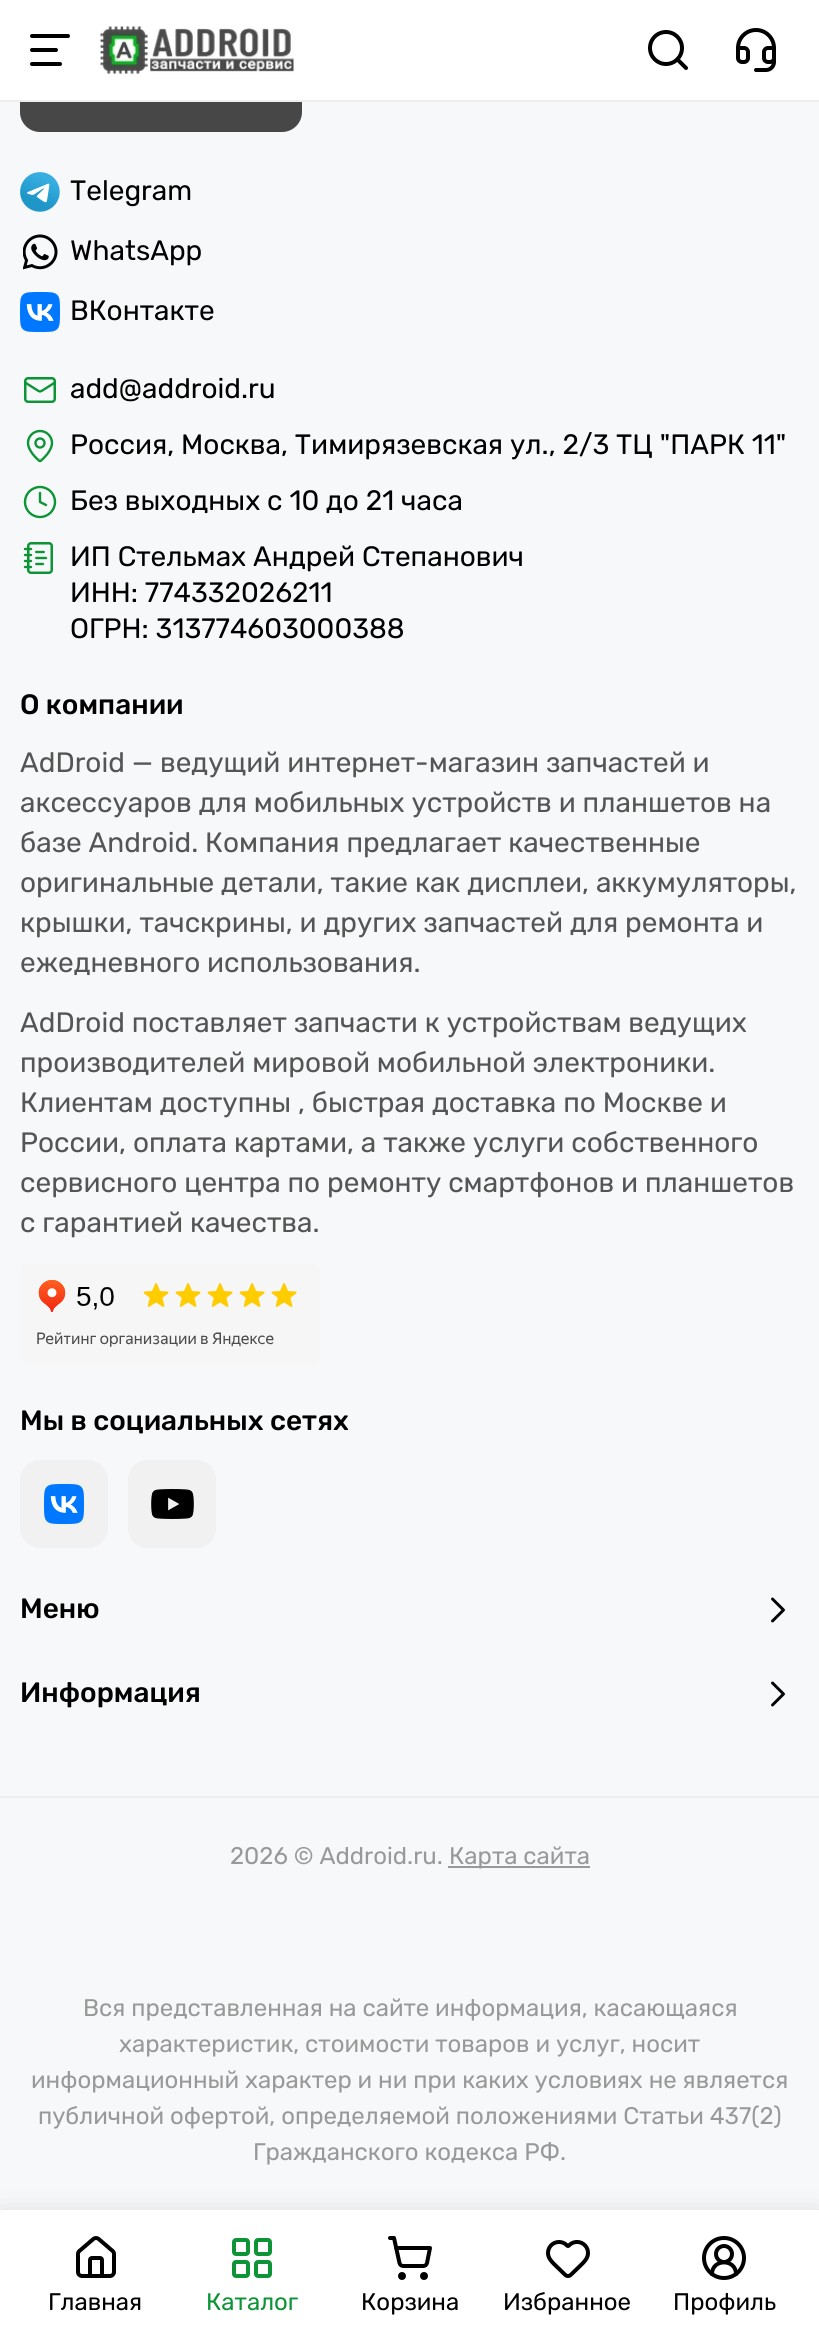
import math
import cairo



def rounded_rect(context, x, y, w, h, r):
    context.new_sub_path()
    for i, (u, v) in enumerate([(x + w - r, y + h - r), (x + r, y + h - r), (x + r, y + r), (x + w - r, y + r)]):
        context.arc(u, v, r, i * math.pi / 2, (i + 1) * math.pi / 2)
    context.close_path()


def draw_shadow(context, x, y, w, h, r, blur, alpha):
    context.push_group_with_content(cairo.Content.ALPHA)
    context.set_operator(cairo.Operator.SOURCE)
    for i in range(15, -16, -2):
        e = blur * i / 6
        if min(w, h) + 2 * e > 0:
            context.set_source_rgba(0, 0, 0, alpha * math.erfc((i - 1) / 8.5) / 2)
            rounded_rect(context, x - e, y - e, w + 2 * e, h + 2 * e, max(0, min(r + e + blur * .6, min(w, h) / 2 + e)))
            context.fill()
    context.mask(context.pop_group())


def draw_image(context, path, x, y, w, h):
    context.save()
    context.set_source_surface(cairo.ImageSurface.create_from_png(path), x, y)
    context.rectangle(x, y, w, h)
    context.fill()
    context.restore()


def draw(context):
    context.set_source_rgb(247 / 255, 248 / 255, 250 / 255)
    context.paint()
    context.set_source_rgb(71 / 255, 71 / 255, 71 / 255)
    rounded_rect(context, 20, 64, 282, 68, 20)
    context.fill()
    context.set_source_rgb(238 / 255, 238 / 255, 238 / 255)
    context.rectangle(0, 100, 819, 2)
    context.fill()
    context.set_source_rgb(1, 1, 1)
    context.rectangle(0, 0, 819, 100)
    context.fill()
    context.new_path()
    context.move_to(68, 36)
    context.line_to(32, 36)
    context.move_to(56, 50)
    context.line_to(32, 50)
    context.move_to(60, 64)
    context.line_to(32, 64)
    context.set_source_rgb(0, 0, 0)
    context.set_line_width(4)
    context.set_line_cap(cairo.LineCap.ROUND)
    context.set_line_join(cairo.LineJoin.ROUND)
    context.stroke()
    draw_image(context, "images/1.png", 100, 26, 194, 48)
    context.new_path()
    context.move_to(686, 68)
    context.line_to(677.5, 59.5)
    context.stroke()
    context.arc(666, 48, 16, 0, 2 * math.pi)
    context.set_line_cap(cairo.LineCap.BUTT)
    context.set_line_join(cairo.LineJoin.MITER)
    context.stroke()
    draw_image(context, "images/2.png", 736, 28, 40, 44)
    draw_image(context, "images/3.png", 20, 172, 40, 40)
    draw_image(context, "images/4.png", 23, 234, 35, 36)
    draw_image(context, "images/5.png", 20, 292, 40, 40)
    context.new_path()
    context.move_to(55, 382.5)
    context.line_to(41.5, 391)
    context.curve_to(40.5, 391.5, 39.5, 391.5, 38.5, 391)
    context.line_to(25, 382.5)
    context.set_source_rgb(13 / 255, 148 / 255, 54 / 255)
    context.set_line_width(2.4)
    context.set_line_cap(cairo.LineCap.ROUND)
    context.set_line_join(cairo.LineJoin.ROUND)
    context.stroke()
    rounded_rect(context, 25.25, 378.25, 29.5, 23.5, 2.75)
    context.set_line_width(2.5)
    context.set_line_cap(cairo.LineCap.BUTT)
    context.set_line_join(cairo.LineJoin.MITER)
    context.stroke()
    draw_image(context, "images/6.png", 26, 429, 28, 34)
    context.new_path()
    context.move_to(40, 493)
    context.line_to(40, 502)
    context.line_to(46, 505)
    context.set_line_width(2.4)
    context.set_line_cap(cairo.LineCap.ROUND)
    context.set_line_join(cairo.LineJoin.ROUND)
    context.stroke()
    context.arc(40, 502, 15, 0, 2 * math.pi)
    context.set_line_cap(cairo.LineCap.BUTT)
    context.set_line_join(cairo.LineJoin.MITER)
    context.stroke()
    draw_image(context, "images/7.png", 23, 542, 30, 32)
    draw_image(context, "images/8.png", 20, 1264, 300, 100)
    context.set_source_rgb(241 / 255, 241 / 255, 241 / 255)
    rounded_rect(context, 20, 1460, 88, 88, 20)
    context.fill()
    draw_image(context, "images/9.png", 44, 1484, 40, 40)
    rounded_rect(context, 128, 1460, 88, 88, 20)
    context.fill()
    draw_image(context, "images/10.png", 151, 1489, 43, 30)
    context.new_path()
    context.move_to(772.5, 1621)
    context.line_to(783.5, 1610)
    context.line_to(772.5, 1599)
    context.set_source_rgb(0, 0, 0)
    context.set_line_width(2.9)
    context.set_line_cap(cairo.LineCap.ROUND)
    context.set_line_join(cairo.LineJoin.ROUND)
    context.stroke()
    context.new_path()
    context.move_to(772.5, 1705)
    context.line_to(783.5, 1694)
    context.line_to(772.5, 1683)
    context.stroke()
    context.set_source_rgb(238 / 255, 238 / 255, 238 / 255)
    context.rectangle(0, 1796, 819, 2)
    context.fill()
    context.set_source_rgb(153 / 255, 153 / 255, 153 / 255)
    context.rectangle(448, 1866, 142, 2)
    context.fill()
    context.set_source_rgb(0, 0, 0)
    draw_shadow(context, 0, 2220, 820, 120, 0, 15, 0.2)
    context.set_source_rgb(1, 1, 1)
    context.rectangle(0, 2210, 819, 119)
    context.fill()
    draw_image(context, "images/11.png", 76, 2236, 40, 42)
    rounded_rect(context, 234, 2240, 14, 14, 2)
    context.set_source_rgb(13 / 255, 148 / 255, 54 / 255)
    context.set_line_width(4)
    context.set_line_cap(cairo.LineCap.BUTT)
    context.set_line_join(cairo.LineJoin.MITER)
    context.stroke()
    rounded_rect(context, 256, 2240, 14, 14, 2)
    context.stroke()
    rounded_rect(context, 256, 2262, 14, 14, 2)
    context.stroke()
    rounded_rect(context, 234, 2262, 14, 14, 2)
    context.stroke()
    context.arc(402, 2276, 2, 0, 2 * math.pi)
    context.set_source_rgb(0, 0, 0)
    context.stroke()
    context.arc(424, 2276, 2, 0, 2 * math.pi)
    context.stroke()
    context.new_path()
    context.move_to(390, 2238)
    context.line_to(394, 2238)
    context.line_to(399.5, 2263)
    context.curve_to(400, 2265, 401.5, 2266, 403.5, 2266)
    context.line_to(423, 2266)
    context.curve_to(425, 2266, 426.5, 2265, 427, 2263)
    context.line_to(430, 2248)
    context.line_to(396, 2248)
    context.set_line_cap(cairo.LineCap.ROUND)
    context.set_line_join(cairo.LineJoin.ROUND)
    context.stroke()
    draw_image(context, "images/12.png", 546, 2240, 44, 38)
    context.new_path()
    context.move_to(736, 2274)
    context.curve_to(736, 2258.5, 712, 2258.5, 712, 2274)
    context.stroke()
    context.arc(724, 2254, 8, 0, 2 * math.pi)
    context.set_line_cap(cairo.LineCap.BUTT)
    context.set_line_join(cairo.LineJoin.MITER)
    context.stroke()
    context.arc(724, 2258, 20, 0, 2 * math.pi)
    context.stroke()
    context.select_font_face("Rubik")
    context.set_font_size(28)
    context.move_to(70, 200)
    context.show_text("Telegram")
    context.move_to(70, 260)
    context.show_text("WhatsApp")
    context.move_to(70, 320)
    context.show_text("ВКонтакте")
    context.move_to(70, 398)
    context.show_text("add@addroid.ru")
    context.move_to(70, 454)
    context.show_text("Россия, Москва, Тимирязевская ул., 2/3 ТЦ \"ПАРК 11\"")
    context.move_to(70, 510)
    context.show_text("Без выходных с 10 до 21 часа")
    context.move_to(70, 566)
    context.show_text("ИП Стельмах Андрей Степанович")
    context.move_to(70, 602)
    context.show_text("ИНН: 774332026211")
    context.move_to(70, 638)
    context.show_text("ОГРН: 313774603000388")
    context.select_font_face("Rubik Medium")
    context.move_to(20, 714)
    context.show_text("О компании")
    context.select_font_face("Rubik")
    context.set_source_rgb(85 / 255, 85 / 255, 85 / 255)
    context.move_to(20, 772)
    context.show_text("AdDroid — ведущий интернет-магазин запчастей и")
    context.move_to(20, 812)
    context.show_text("аксессуаров для мобильных устройств и планшетов на")
    context.move_to(20, 852)
    context.show_text("базе Android. Компания предлагает качественные")
    context.move_to(20, 892)
    context.show_text("оригинальные детали, такие как дисплеи, аккумуляторы,")
    context.move_to(20, 932)
    context.show_text("крышки, тачскрины, и других запчастей для ремонта и")
    context.move_to(20, 972)
    context.show_text("ежедневного использования.")
    context.move_to(20, 1032)
    context.show_text("AdDroid поставляет запчасти к устройствам ведущих")
    context.move_to(20, 1072)
    context.show_text("производителей мировой мобильной электроники.")
    context.move_to(20, 1112)
    context.show_text("Клиентам доступны , быстрая доставка по Москве и")
    context.move_to(20, 1152)
    context.show_text("России, оплата картами, а также услуги собственного")
    context.move_to(20, 1192)
    context.show_text("сервисного центра по ремонту смартфонов и планшетов")
    context.move_to(20, 1232)
    context.show_text("с гарантией качества.")
    context.select_font_face("Rubik Medium")
    context.set_source_rgb(0, 0, 0)
    context.move_to(20, 1430)
    context.show_text("Мы в социальных сетях")
    context.move_to(20, 1618)
    context.show_text("Меню")
    context.move_to(20, 1702)
    context.show_text("Информация")
    context.select_font_face("Rubik")
    context.set_font_size(24)
    context.set_source_rgb(153 / 255, 153 / 255, 153 / 255)
    context.move_to(230, 1864)
    context.show_text("2026 © Addroid.ru.")
    context.move_to(449, 1864)
    context.show_text("Карта сайта")
    context.move_to(83, 2016)
    context.show_text("Вся представленная на сайте информация, касающаяся")
    context.move_to(119, 2052)
    context.show_text("характеристик, стоимости товаров и услуг, носит")
    context.move_to(31, 2088)
    context.show_text("информационный характер и ни при каких условиях не является")
    context.move_to(38, 2124)
    context.show_text("публичной офертой, определяемой положениями Статьи 437(2)")
    context.move_to(253, 2160)
    context.show_text("Гражданского кодекса РФ.")
    context.set_source_rgb(0, 0, 0)
    context.move_to(48, 2310)
    context.show_text("Главная")
    context.set_source_rgb(13 / 255, 148 / 255, 54 / 255)
    context.move_to(206, 2310)
    context.show_text("Каталог")
    context.set_source_rgb(0, 0, 0)
    context.move_to(361, 2310)
    context.show_text("Корзина")
    context.move_to(503, 2310)
    context.show_text("Избранное")
    context.move_to(673, 2310)
    context.show_text("Профиль")


surface = cairo.ImageSurface(cairo.Format.RGB24, 819, 2329)
context = cairo.Context(surface)
options = cairo.FontOptions()
options.set_hint_metrics(cairo.HintMetrics.OFF)
options.set_hint_style(cairo.HintStyle.NONE)
context.set_font_options(options)
context.set_miter_limit(4)
draw(context)
surface.write_to_png("out.png")
